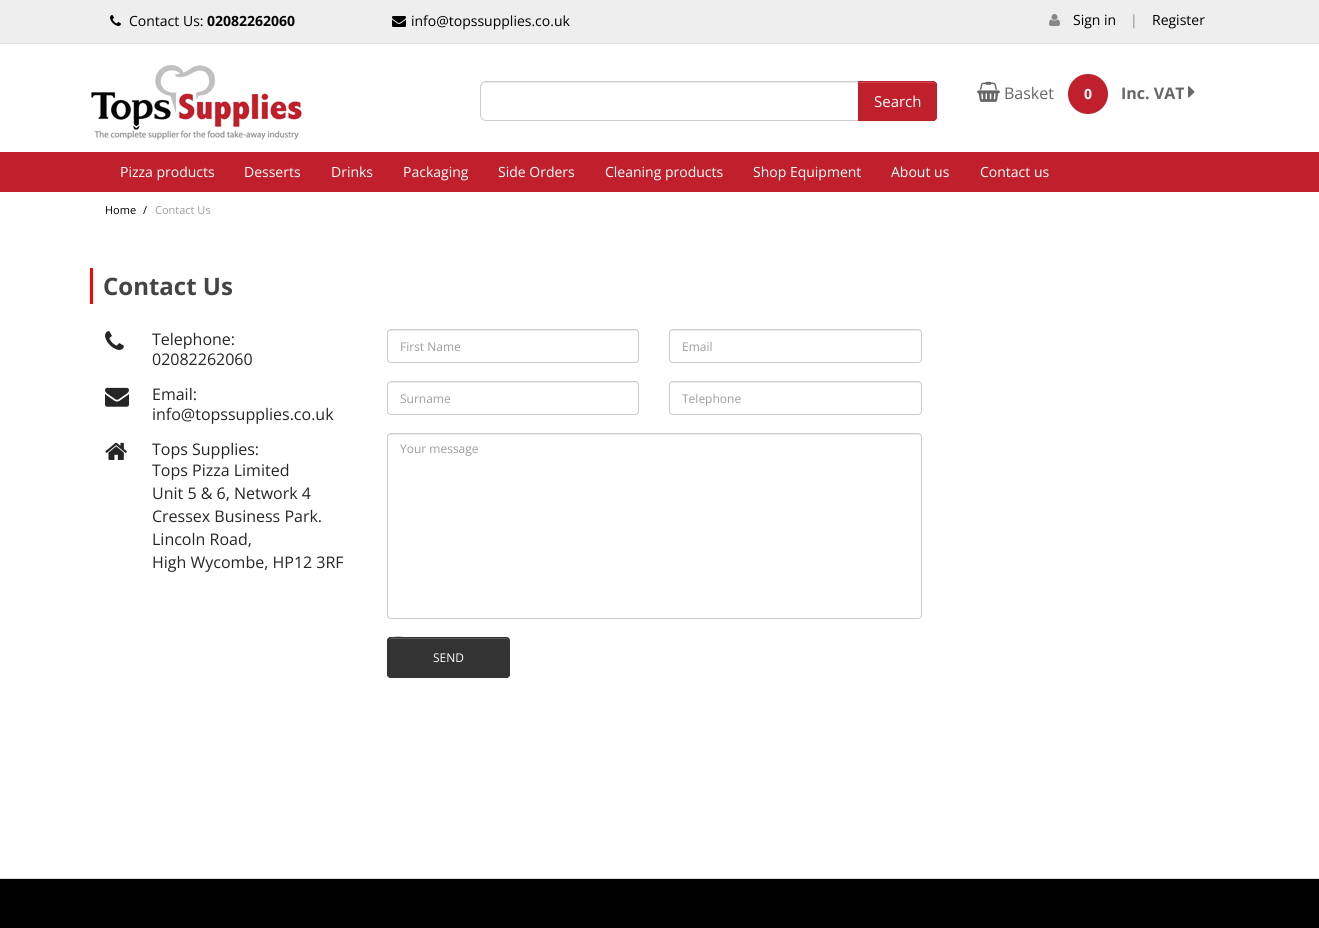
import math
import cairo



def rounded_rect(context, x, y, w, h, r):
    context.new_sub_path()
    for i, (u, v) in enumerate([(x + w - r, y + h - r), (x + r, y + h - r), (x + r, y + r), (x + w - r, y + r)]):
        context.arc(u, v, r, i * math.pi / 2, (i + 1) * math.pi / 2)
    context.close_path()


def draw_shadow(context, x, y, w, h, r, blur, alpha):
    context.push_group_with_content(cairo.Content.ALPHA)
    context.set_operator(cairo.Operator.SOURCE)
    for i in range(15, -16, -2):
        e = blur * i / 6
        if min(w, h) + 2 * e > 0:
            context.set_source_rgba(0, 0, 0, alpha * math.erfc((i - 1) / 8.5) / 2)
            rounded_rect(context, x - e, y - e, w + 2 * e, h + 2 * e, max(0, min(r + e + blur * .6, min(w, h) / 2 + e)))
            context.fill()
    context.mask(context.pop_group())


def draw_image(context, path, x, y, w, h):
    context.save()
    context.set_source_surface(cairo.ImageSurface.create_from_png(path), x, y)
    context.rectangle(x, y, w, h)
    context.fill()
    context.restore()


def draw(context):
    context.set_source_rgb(1, 1, 1)
    context.paint()
    context.set_source_rgb(238 / 255, 238 / 255, 238 / 255)
    context.rectangle(0, 0, 1319, 43)
    context.fill()
    context.set_source_rgb(226 / 255, 226 / 255, 226 / 255)
    context.rectangle(0, 43, 1319, 1)
    context.fill()
    draw_image(context, "images/1.png", 110, 15, 11, 11)
    draw_image(context, "images/2.png", 392, 16, 14, 11)
    draw_image(context, "images/3.png", 1049, 14, 11, 12)
    draw_image(context, "images/4.png", 91, 65, 211, 75)
    draw_image(context, "images/5.png", 977, 81, 23, 21)
    context.set_source_rgb(191 / 255, 32 / 255, 44 / 255)
    context.arc(1088, 94, 20, 0, 2 * math.pi)
    context.fill()
    draw_image(context, "images/6.png", 1188, 86, 7, 12)
    context.set_source_rgb(236 / 255, 236 / 255, 236 / 255)
    context.new_path()
    context.move_to(486, 83)
    context.line_to(858, 83)
    context.line_to(858, 82)
    context.line_to(486, 82)
    context.curve_to(483, 82, 481, 84, 481, 87)
    context.line_to(481, 88)
    context.curve_to(481, 85, 483, 83, 486, 83)
    context.close_path()
    context.fill()
    context.new_path()
    context.move_to(486, 81.5)
    context.line_to(858.5, 81.5)
    context.line_to(858.5, 120.5)
    context.line_to(486, 120.5)
    context.curve_to(483, 120.5, 480.5, 118, 480.5, 115)
    context.line_to(480.5, 87)
    context.curve_to(480.5, 84, 483, 81.5, 486, 81.5)
    context.close_path()
    context.set_source_rgb(204 / 255, 204 / 255, 204 / 255)
    context.set_line_width(1)
    context.stroke()
    context.set_source_rgb(0, 0, 0)
    draw_shadow(context, 858, 82, 79, 40, 4, 1, 0.05)
    context.set_source_rgb(191 / 255, 32 / 255, 44 / 255)
    context.new_path()
    context.move_to(858, 81)
    context.line_to(933, 81)
    context.curve_to(935, 81, 937, 83, 937, 85)
    context.line_to(937, 117)
    context.curve_to(937, 119, 935, 121, 933, 121)
    context.line_to(858, 121)
    context.close_path()
    context.fill()
    context.set_source_rgb(204 / 255, 77 / 255, 86 / 255)
    context.new_path()
    context.move_to(859, 83)
    context.line_to(933, 83)
    context.curve_to(935, 83, 936, 84, 936, 86)
    context.line_to(936, 85)
    context.curve_to(936, 83, 935, 82, 933, 82)
    context.line_to(859, 82)
    context.close_path()
    context.fill()
    context.new_path()
    context.move_to(858.5, 81.5)
    context.line_to(933, 81.5)
    context.curve_to(935, 81.5, 936.5, 83, 936.5, 85)
    context.line_to(936.5, 117)
    context.curve_to(936.5, 119, 935, 120.5, 933, 120.5)
    context.line_to(858.5, 120.5)
    context.close_path()
    context.set_source_rgb(191 / 255, 32 / 255, 44 / 255)
    context.stroke()
    context.rectangle(0, 152, 1319, 40)
    context.fill()
    context.set_source_rgb(1, 0, 0)
    context.rectangle(90, 268, 3, 36)
    context.fill()
    draw_image(context, "images/7.png", 105, 331, 19, 19)
    draw_image(context, "images/8.png", 105, 387, 24, 20)
    draw_image(context, "images/9.png", 105, 442, 22, 18)
    context.set_source_rgb(236 / 255, 236 / 255, 236 / 255)
    context.new_path()
    context.move_to(391, 331)
    context.line_to(636, 331)
    context.line_to(638, 332)
    context.line_to(638, 334)
    context.curve_to(638, 332, 637, 330, 635, 330)
    context.line_to(391, 330)
    context.curve_to(389, 330, 388, 332, 388, 334)
    context.curve_to(388, 332, 389, 331, 391, 331)
    context.close_path()
    context.fill()
    rounded_rect(context, 387.5, 329.5, 251, 33, 3.5)
    context.set_source_rgb(204 / 255, 204 / 255, 204 / 255)
    context.stroke()
    context.set_source_rgb(236 / 255, 236 / 255, 236 / 255)
    context.new_path()
    context.move_to(673, 331)
    context.line_to(919, 331)
    context.line_to(921, 332)
    context.line_to(921, 334)
    context.curve_to(921, 332, 920, 330, 918, 330)
    context.line_to(673, 330)
    context.curve_to(671, 330, 670, 332, 670, 334)
    context.curve_to(670, 332, 671, 331, 673, 331)
    context.close_path()
    context.fill()
    rounded_rect(context, 669.5, 329.5, 252, 33, 3.5)
    context.set_source_rgb(204 / 255, 204 / 255, 204 / 255)
    context.stroke()
    context.set_source_rgb(236 / 255, 236 / 255, 236 / 255)
    context.new_path()
    context.move_to(391, 383)
    context.line_to(636, 383)
    context.line_to(638, 384)
    context.line_to(638, 386)
    context.curve_to(638, 384, 637, 382, 635, 382)
    context.line_to(391, 382)
    context.curve_to(389, 382, 388, 384, 388, 386)
    context.curve_to(388, 384, 389, 383, 391, 383)
    context.close_path()
    context.fill()
    rounded_rect(context, 387.5, 381.5, 251, 33, 3.5)
    context.set_source_rgb(204 / 255, 204 / 255, 204 / 255)
    context.stroke()
    context.set_source_rgb(236 / 255, 236 / 255, 236 / 255)
    context.new_path()
    context.move_to(673, 383)
    context.line_to(919, 383)
    context.line_to(921, 384)
    context.line_to(921, 386)
    context.curve_to(921, 384, 920, 382, 918, 382)
    context.line_to(673, 382)
    context.curve_to(671, 382, 670, 384, 670, 386)
    context.curve_to(670, 384, 671, 383, 673, 383)
    context.close_path()
    context.fill()
    rounded_rect(context, 669.5, 381.5, 252, 33, 3.5)
    context.set_source_rgb(204 / 255, 204 / 255, 204 / 255)
    context.stroke()
    context.set_source_rgb(236 / 255, 236 / 255, 236 / 255)
    context.new_path()
    context.move_to(391, 435)
    context.line_to(918, 435)
    context.curve_to(920, 435, 921, 436, 921, 438)
    context.line_to(920, 435)
    context.line_to(918, 434)
    context.line_to(391, 434)
    context.curve_to(389, 434, 388, 436, 388, 438)
    context.curve_to(388, 436, 389, 435, 391, 435)
    context.close_path()
    context.fill()
    rounded_rect(context, 387.5, 433.5, 534, 185, 3.5)
    context.set_source_rgb(204 / 255, 204 / 255, 204 / 255)
    context.stroke()
    context.set_source_rgb(0, 0, 0)
    draw_shadow(context, 387, 638, 123, 41, 4, 1, 0.05)
    context.set_source_rgb(51 / 255, 51 / 255, 51 / 255)
    rounded_rect(context, 387, 637, 123, 41, 4)
    context.fill()
    context.set_source_rgb(92 / 255, 92 / 255, 92 / 255)
    context.new_path()
    context.move_to(391, 639)
    context.line_to(506, 639)
    context.curve_to(508, 639, 509, 640, 509, 642)
    context.curve_to(509, 640, 508, 638, 506, 638)
    context.line_to(410, 638)
    context.curve_to(409, 638, 388, 633, 388, 642)
    context.curve_to(388, 640, 389, 639, 391, 639)
    context.close_path()
    context.fill()
    rounded_rect(context, 387.5, 637.5, 122, 40, 3.5)
    context.set_source_rgb(51 / 255, 51 / 255, 51 / 255)
    context.stroke()
    context.set_source_rgb(0, 0, 0)
    context.rectangle(0, 879, 1319, 49)
    context.fill()
    context.set_source_rgb(221 / 255, 221 / 255, 221 / 255)
    context.rectangle(0, 878, 1319, 1)
    context.fill()
    context.select_font_face("Open Sans")
    context.set_font_size(14)
    context.set_source_rgb(0, 0, 0)
    context.move_to(129, 26)
    context.show_text("Contact Us:")
    context.select_font_face("Open Sans", cairo.FontSlant.NORMAL, cairo.FontWeight.BOLD)
    context.move_to(207, 26)
    context.show_text("02082262060")
    context.select_font_face("Open Sans")
    context.move_to(411, 26)
    context.show_text("info@topssupplies.co.uk")
    context.move_to(1073, 25)
    context.show_text("Sign in")
    context.set_source_rgb(136 / 255, 136 / 255, 136 / 255)
    context.move_to(1130, 25)
    context.show_text("|")
    context.set_source_rgb(0, 0, 0)
    context.move_to(1152, 25)
    context.show_text("Register")
    context.set_font_size(16)
    context.set_source_rgb(102 / 255, 102 / 255, 102 / 255)
    context.move_to(1004, 99)
    context.show_text("Basket")
    context.select_font_face("Open Sans", cairo.FontSlant.NORMAL, cairo.FontWeight.BOLD)
    context.set_font_size(14)
    context.set_source_rgb(1, 1, 1)
    context.move_to(1084, 99)
    context.show_text("0")
    context.set_font_size(16)
    context.set_source_rgb(102 / 255, 102 / 255, 102 / 255)
    context.move_to(1121, 99)
    context.show_text("Inc. VAT")
    context.select_font_face("Open Sans")
    context.set_font_size(15)
    context.set_source_rgb(1, 1, 1)
    context.move_to(874, 107)
    context.show_text("Search")
    context.set_font_size(14)
    context.move_to(120, 177)
    context.show_text("Pizza products")
    context.move_to(244, 177)
    context.show_text("Desserts")
    context.move_to(331, 177)
    context.show_text("Drinks")
    context.move_to(403, 177)
    context.show_text("Packaging")
    context.move_to(498, 177)
    context.show_text("Side Orders")
    context.move_to(605, 177)
    context.show_text("Cleaning products")
    context.move_to(753, 177)
    context.show_text("Shop Equipment")
    context.move_to(891, 177)
    context.show_text("About us")
    context.move_to(980, 177)
    context.show_text("Contact us")
    context.set_font_size(11)
    context.set_source_rgb(0, 0, 0)
    context.move_to(105, 214)
    context.show_text("Home")
    context.move_to(143, 214)
    context.show_text("/")
    context.set_source_rgb(157 / 255, 157 / 255, 157 / 255)
    context.move_to(155, 214)
    context.show_text("Contact Us")
    context.select_font_face("Open Sans", cairo.FontSlant.NORMAL, cairo.FontWeight.BOLD)
    context.set_font_size(24)
    context.set_source_rgb(68 / 255, 68 / 255, 68 / 255)
    context.move_to(103, 295)
    context.show_text("Contact Us")
    context.select_font_face("Open Sans")
    context.set_font_size(16)
    context.set_source_rgb(38 / 255, 38 / 255, 38 / 255)
    context.move_to(152, 345)
    context.show_text("Telephone:")
    context.move_to(152, 365)
    context.show_text("02082262060")
    context.move_to(152, 400)
    context.show_text("Email:")
    context.move_to(152, 420)
    context.show_text("info@topssupplies.co.uk")
    context.move_to(152, 455)
    context.show_text("Tops Supplies:")
    context.move_to(152, 476)
    context.show_text("Tops Pizza Limited")
    context.move_to(152, 499)
    context.show_text("Unit 5 & 6, Network 4")
    context.move_to(152, 522)
    context.show_text("Cressex Business Park.")
    context.move_to(152, 545)
    context.show_text("Lincoln Road,")
    context.move_to(152, 568)
    context.show_text("High Wycombe, HP12 3RF")
    context.set_font_size(12)
    context.set_source_rgb(157 / 255, 157 / 255, 157 / 255)
    context.move_to(400, 351)
    context.show_text("First Name")
    context.move_to(682, 351)
    context.show_text("Email")
    context.move_to(400, 403)
    context.show_text("Surname")
    context.move_to(682, 403)
    context.show_text("Telephone")
    context.move_to(400, 453)
    context.show_text("Your message")
    context.set_source_rgb(1, 1, 1)
    context.move_to(433, 662)
    context.show_text("SEND")


surface = cairo.ImageSurface(cairo.Format.RGB24, 1319, 928)
context = cairo.Context(surface)
options = cairo.FontOptions()
options.set_hint_metrics(cairo.HintMetrics.OFF)
options.set_hint_style(cairo.HintStyle.NONE)
context.set_font_options(options)
context.set_miter_limit(4)
draw(context)
surface.write_to_png("out.png")
